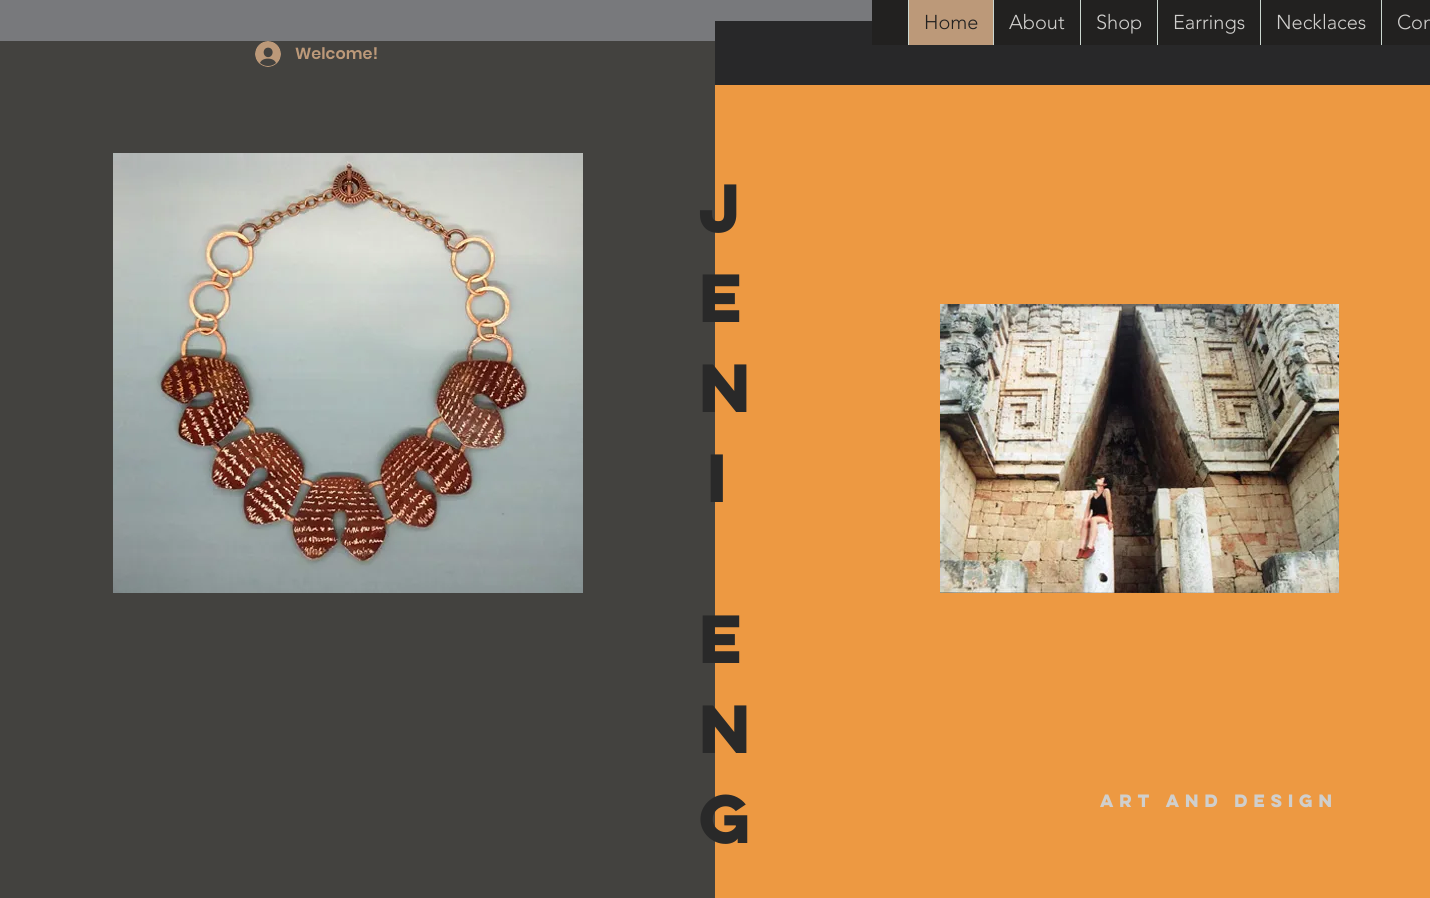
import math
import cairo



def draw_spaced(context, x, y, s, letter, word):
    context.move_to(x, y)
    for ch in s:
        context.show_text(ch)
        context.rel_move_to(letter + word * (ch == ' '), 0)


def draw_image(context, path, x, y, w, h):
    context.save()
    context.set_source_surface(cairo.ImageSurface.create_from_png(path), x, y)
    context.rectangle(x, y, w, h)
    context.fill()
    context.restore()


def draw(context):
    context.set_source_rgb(120 / 255, 121 / 255, 124 / 255)
    context.paint()
    context.set_source_rgb(40 / 255, 40 / 255, 41 / 255)
    context.rectangle(715, 21, 715, 64)
    context.fill()
    context.set_source_rgb(34 / 255, 33 / 255, 32 / 255)
    context.rectangle(872, 0, 558, 45)
    context.fill()
    context.set_source_rgb(188 / 255, 153 / 255, 121 / 255)
    context.rectangle(909, 0, 84, 45)
    context.fill()
    context.set_source_rgb(203 / 255, 215 / 255, 208 / 255)
    context.rectangle(908, 0, 1, 45)
    context.fill()
    context.rectangle(993, 0, 1, 45)
    context.fill()
    context.rectangle(1080, 0, 1, 45)
    context.fill()
    context.rectangle(1157, 0, 1, 45)
    context.fill()
    context.rectangle(1260, 0, 1, 45)
    context.fill()
    context.rectangle(1381, 0, 1, 45)
    context.fill()
    context.set_source_rgb(67 / 255, 66 / 255, 63 / 255)
    context.rectangle(0, 41, 715, 857)
    context.fill()
    draw_image(context, "images/1.png", 255, 41, 26, 26)
    draw_image(context, "images/2.png", 113, 153, 470, 440)
    context.set_source_rgb(237 / 255, 153 / 255, 66 / 255)
    context.rectangle(715, 85, 715, 813)
    context.fill()
    draw_image(context, "images/3.png", 940, 304, 399, 289)
    context.select_font_face("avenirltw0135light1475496 Light")
    context.set_font_size(20)
    context.set_source_rgb(34 / 255, 33 / 255, 32 / 255)
    context.move_to(924, 29)
    context.show_text("Home")
    context.set_source_rgb(208 / 255, 207 / 255, 205 / 255)
    context.move_to(1009, 29)
    context.show_text("About")
    context.move_to(1096, 29)
    context.show_text("Shop")
    context.move_to(1173, 29)
    context.show_text("Earrings")
    context.move_to(1276, 29)
    context.show_text("Necklaces")
    context.move_to(1397, 29)
    context.show_text("Con")
    context.select_font_face("Poppins SemiBold")
    context.set_font_size(16)
    context.set_source_rgb(188 / 255, 153 / 255, 121 / 255)
    context.move_to(295, 59)
    context.show_text("Welcome!")
    context.select_font_face("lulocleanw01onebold", cairo.FontSlant.NORMAL, cairo.FontWeight.BOLD)
    context.set_font_size(61)
    context.set_source_rgb(41 / 255, 41 / 255, 41 / 255)
    context.move_to(699, 232)
    context.show_text("j")
    context.move_to(699, 322)
    context.show_text("e")
    context.move_to(699, 412)
    context.show_text("n")
    context.move_to(707, 502)
    context.show_text("i")
    context.move_to(699, 663)
    context.show_text("e")
    context.move_to(699, 753)
    context.show_text("n")
    context.move_to(699, 843)
    context.show_text("g")
    context.set_font_size(16)
    context.set_source_rgb(208 / 255, 207 / 255, 205 / 255)
    draw_spaced(context, 1100, 807, "Art and Design", 2.4, 0)


surface = cairo.ImageSurface(cairo.Format.RGB24, 1430, 898)
context = cairo.Context(surface)
options = cairo.FontOptions()
options.set_hint_metrics(cairo.HintMetrics.OFF)
options.set_hint_style(cairo.HintStyle.NONE)
context.set_font_options(options)
context.set_miter_limit(4)
draw(context)
surface.write_to_png("out.png")
